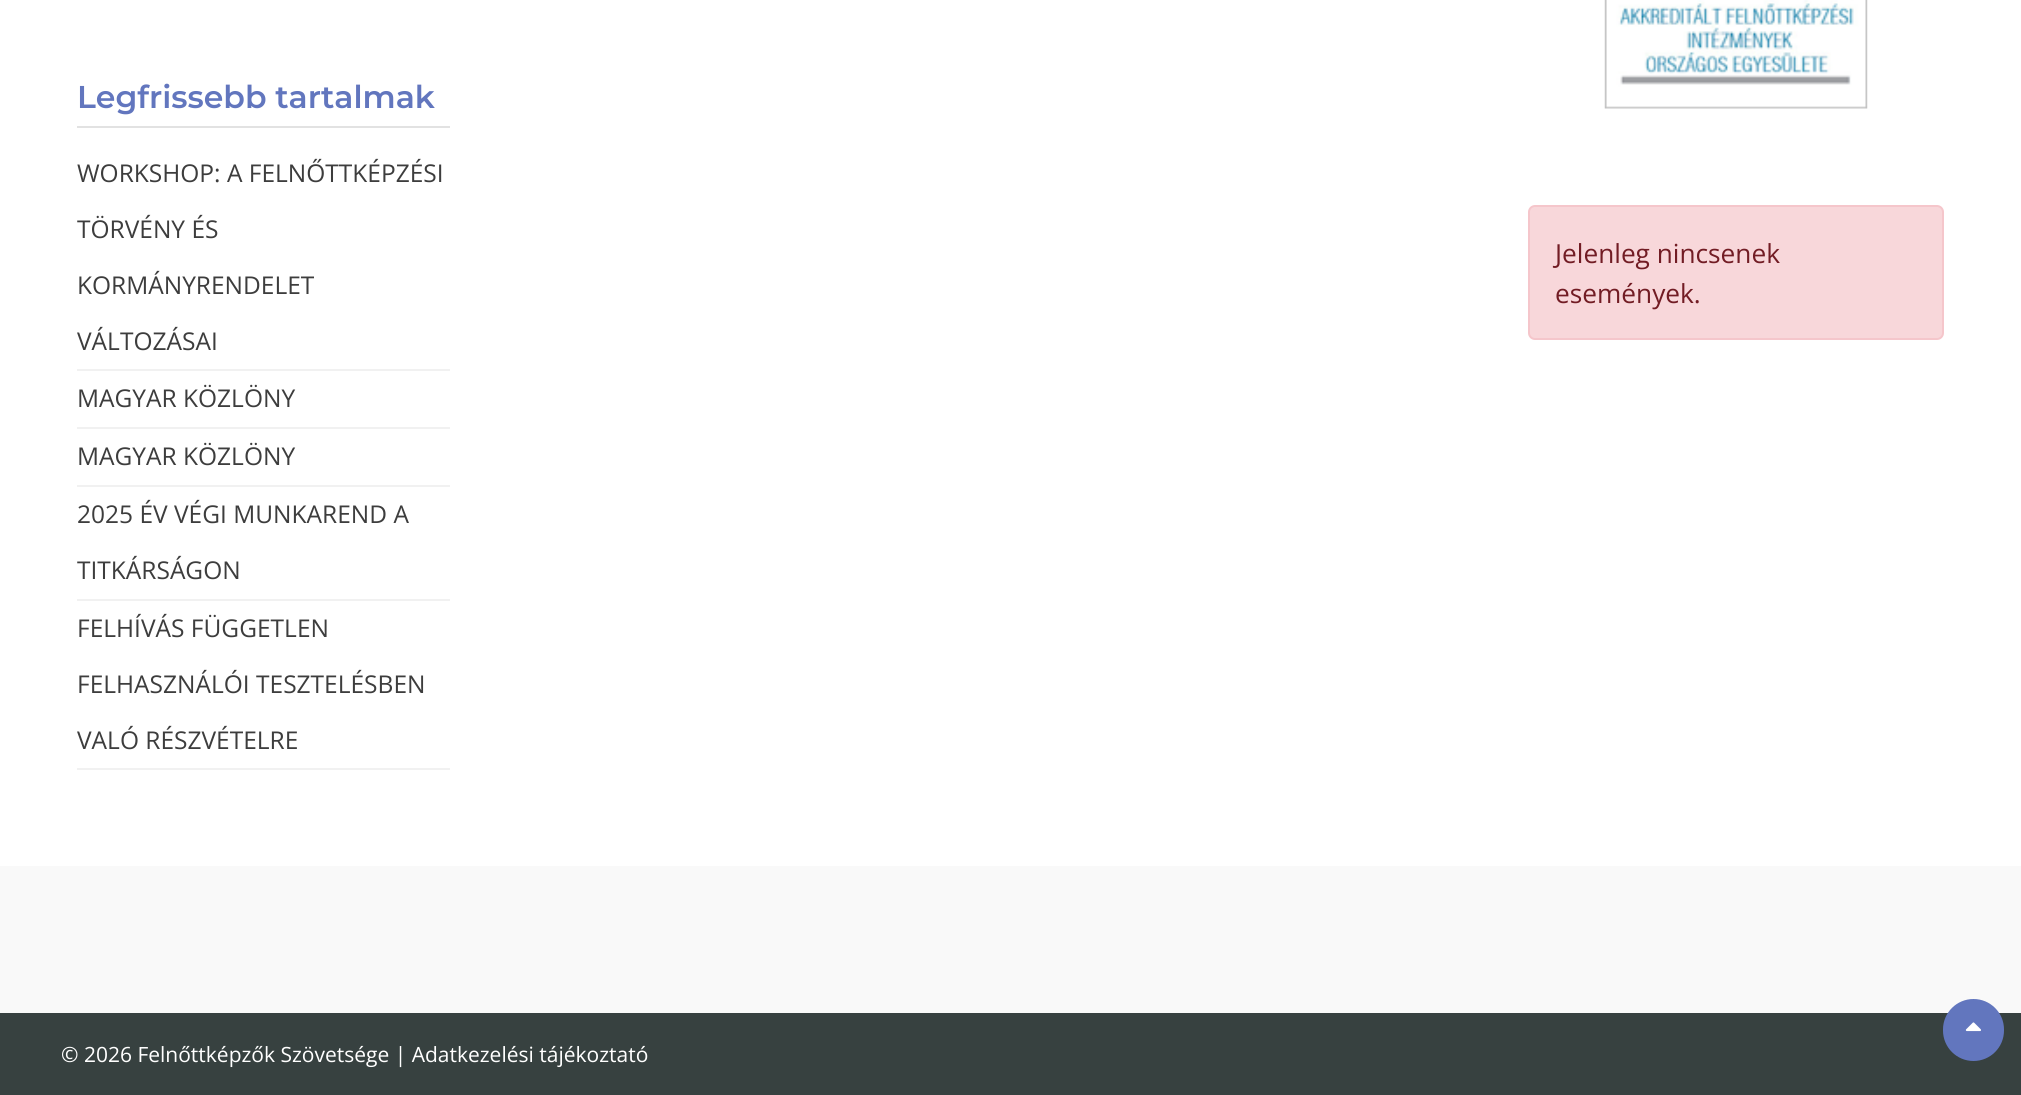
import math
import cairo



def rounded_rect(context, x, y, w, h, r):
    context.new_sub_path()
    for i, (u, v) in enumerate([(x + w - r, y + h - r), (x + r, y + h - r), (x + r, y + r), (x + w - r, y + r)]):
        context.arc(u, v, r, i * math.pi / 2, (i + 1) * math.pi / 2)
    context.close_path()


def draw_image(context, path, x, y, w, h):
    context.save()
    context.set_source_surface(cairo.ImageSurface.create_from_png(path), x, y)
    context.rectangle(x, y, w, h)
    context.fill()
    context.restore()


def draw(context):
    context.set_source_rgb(1, 1, 1)
    context.paint()
    context.set_source_rgb(226 / 255, 226 / 255, 226 / 255)
    context.rectangle(77, 126, 373, 2)
    context.fill()
    context.set_source_rgb(241 / 255, 241 / 255, 241 / 255)
    context.rectangle(77, 369, 373, 2)
    context.fill()
    context.rectangle(77, 427, 373, 2)
    context.fill()
    context.rectangle(77, 485, 373, 2)
    context.fill()
    context.rectangle(77, 599, 373, 2)
    context.fill()
    context.rectangle(77, 768, 373, 2)
    context.fill()
    draw_image(context, "images/1.png", 1604, 0, 264, 109)
    context.set_source_rgb(248 / 255, 215 / 255, 218 / 255)
    rounded_rect(context, 1529, 206, 414, 133, 6)
    context.fill_preserve()
    context.set_source_rgb(245 / 255, 198 / 255, 203 / 255)
    context.stroke()
    context.set_source_rgb(249 / 255, 249 / 255, 249 / 255)
    context.rectangle(0, 866, 2021, 147)
    context.fill()
    context.set_source_rgb(55 / 255, 65 / 255, 64 / 255)
    context.rectangle(0, 1013, 2021, 82)
    context.fill()
    context.set_source_rgb(98 / 255, 118 / 255, 190 / 255)
    rounded_rect(context, 1943, 999, 61, 62, 30.5)
    context.fill()
    draw_image(context, "images/2.png", 1965, 1022, 16, 10)
    context.select_font_face("Montserrat SemiBold")
    context.set_font_size(31.5)
    context.move_to(77, 108)
    context.show_text("Legfrissebb tartalmak")
    context.select_font_face("Open Sans")
    context.set_font_size(24.5)
    context.set_source_rgb(61 / 255, 61 / 255, 61 / 255)
    context.move_to(77, 182)
    context.show_text("WORKSHOP: A FELNŐTTKÉPZÉSI")
    context.move_to(77, 238)
    context.show_text("TÖRVÉNY ÉS")
    context.move_to(77, 294)
    context.show_text("KORMÁNYRENDELET")
    context.move_to(77, 350)
    context.show_text("VÁLTOZÁSAI")
    context.move_to(77, 407)
    context.show_text("MAGYAR KÖZLÖNY")
    context.move_to(77, 465)
    context.show_text("MAGYAR KÖZLÖNY")
    context.move_to(77, 523)
    context.show_text("2025 ÉV VÉGI MUNKAREND A")
    context.move_to(77, 579)
    context.show_text("TITKÁRSÁGON")
    context.move_to(77, 637)
    context.show_text("FELHÍVÁS FÜGGETLEN")
    context.move_to(77, 693)
    context.show_text("FELHASZNÁLÓI TESZTELÉSBEN")
    context.move_to(77, 749)
    context.show_text("VALÓ RÉSZVÉTELRE")
    context.set_font_size(26.25)
    context.set_source_rgb(114 / 255, 28 / 255, 36 / 255)
    context.move_to(1555, 263)
    context.show_text("Jelenleg nincsenek")
    context.move_to(1555, 303)
    context.show_text("események.")
    context.set_font_size(21)
    context.set_source_rgb(1, 1, 1)
    context.move_to(61, 1062)
    context.show_text("© 2026 Felnőttképzők Szövetsége | Adatkezelési tájékoztató")


surface = cairo.ImageSurface(cairo.Format.RGB24, 2021, 1095)
context = cairo.Context(surface)
options = cairo.FontOptions()
options.set_hint_metrics(cairo.HintMetrics.OFF)
options.set_hint_style(cairo.HintStyle.NONE)
context.set_font_options(options)
context.set_miter_limit(4)
draw(context)
surface.write_to_png("out.png")
